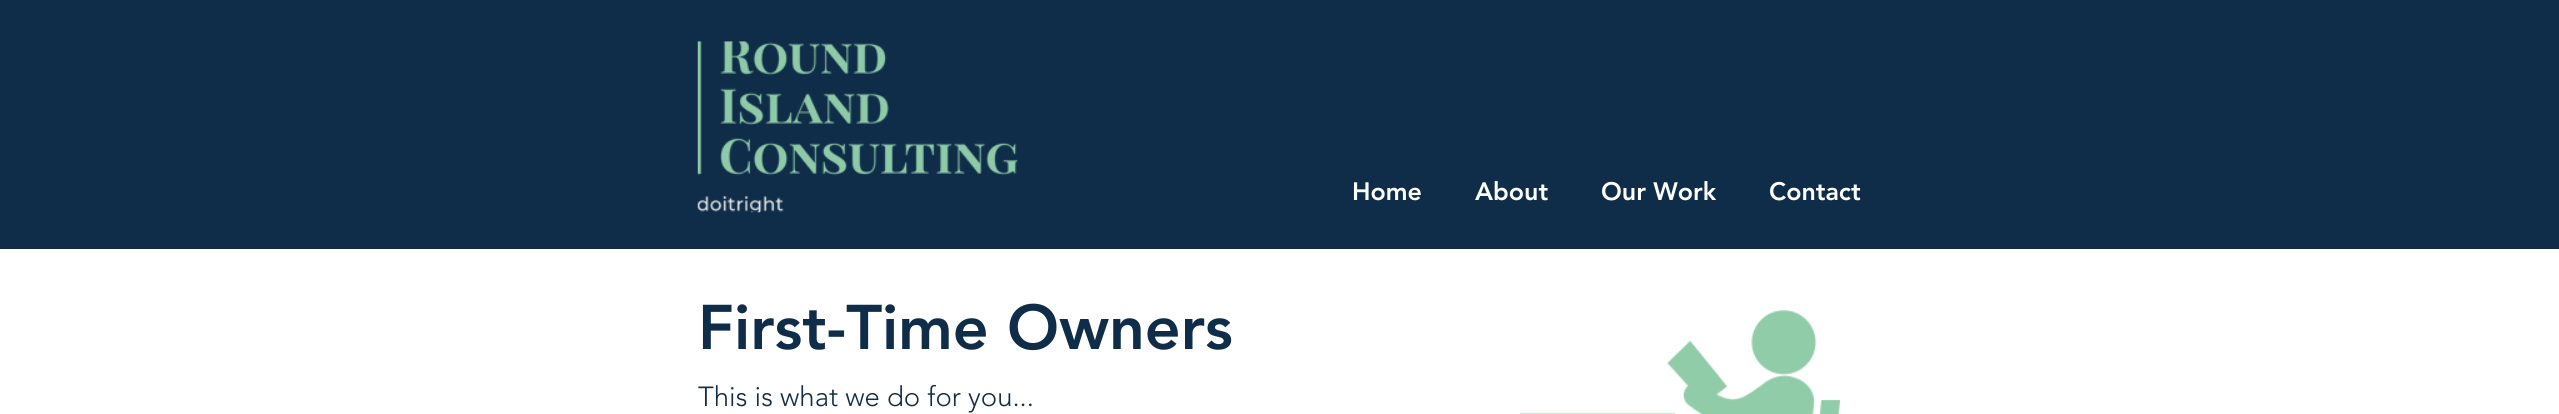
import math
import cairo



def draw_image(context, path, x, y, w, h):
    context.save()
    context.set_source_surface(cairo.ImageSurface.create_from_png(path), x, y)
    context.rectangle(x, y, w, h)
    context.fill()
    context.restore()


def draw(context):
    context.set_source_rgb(1, 1, 1)
    context.paint()
    context.set_source_rgb(15 / 255, 45 / 255, 73 / 255)
    context.rectangle(0, 0, 2559, 249)
    context.fill()
    draw_image(context, "images/1.png", 697, 41, 321, 172)
    draw_image(context, "images/2.png", 1520, 309, 320, 105)
    context.select_font_face("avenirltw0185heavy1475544 Black")
    context.set_font_size(25)
    context.set_source_rgb(1, 1, 1)
    context.move_to(1352, 200)
    context.show_text("Home")
    context.move_to(1475, 200)
    context.show_text("About")
    context.move_to(1601, 200)
    context.show_text("Our Work")
    context.move_to(1769, 200)
    context.show_text("Contact")
    context.set_font_size(62.5)
    context.set_source_rgb(15 / 255, 45 / 255, 73 / 255)
    context.move_to(698, 349)
    context.show_text("First-Time Owners")
    context.select_font_face("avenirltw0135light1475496 Light")
    context.set_font_size(27.5)
    context.move_to(698, 406)
    context.show_text("This is what we do for you...")


surface = cairo.ImageSurface(cairo.Format.RGB24, 2559, 414)
context = cairo.Context(surface)
options = cairo.FontOptions()
options.set_hint_metrics(cairo.HintMetrics.OFF)
options.set_hint_style(cairo.HintStyle.NONE)
context.set_font_options(options)
context.set_miter_limit(4)
draw(context)
surface.write_to_png("out.png")
